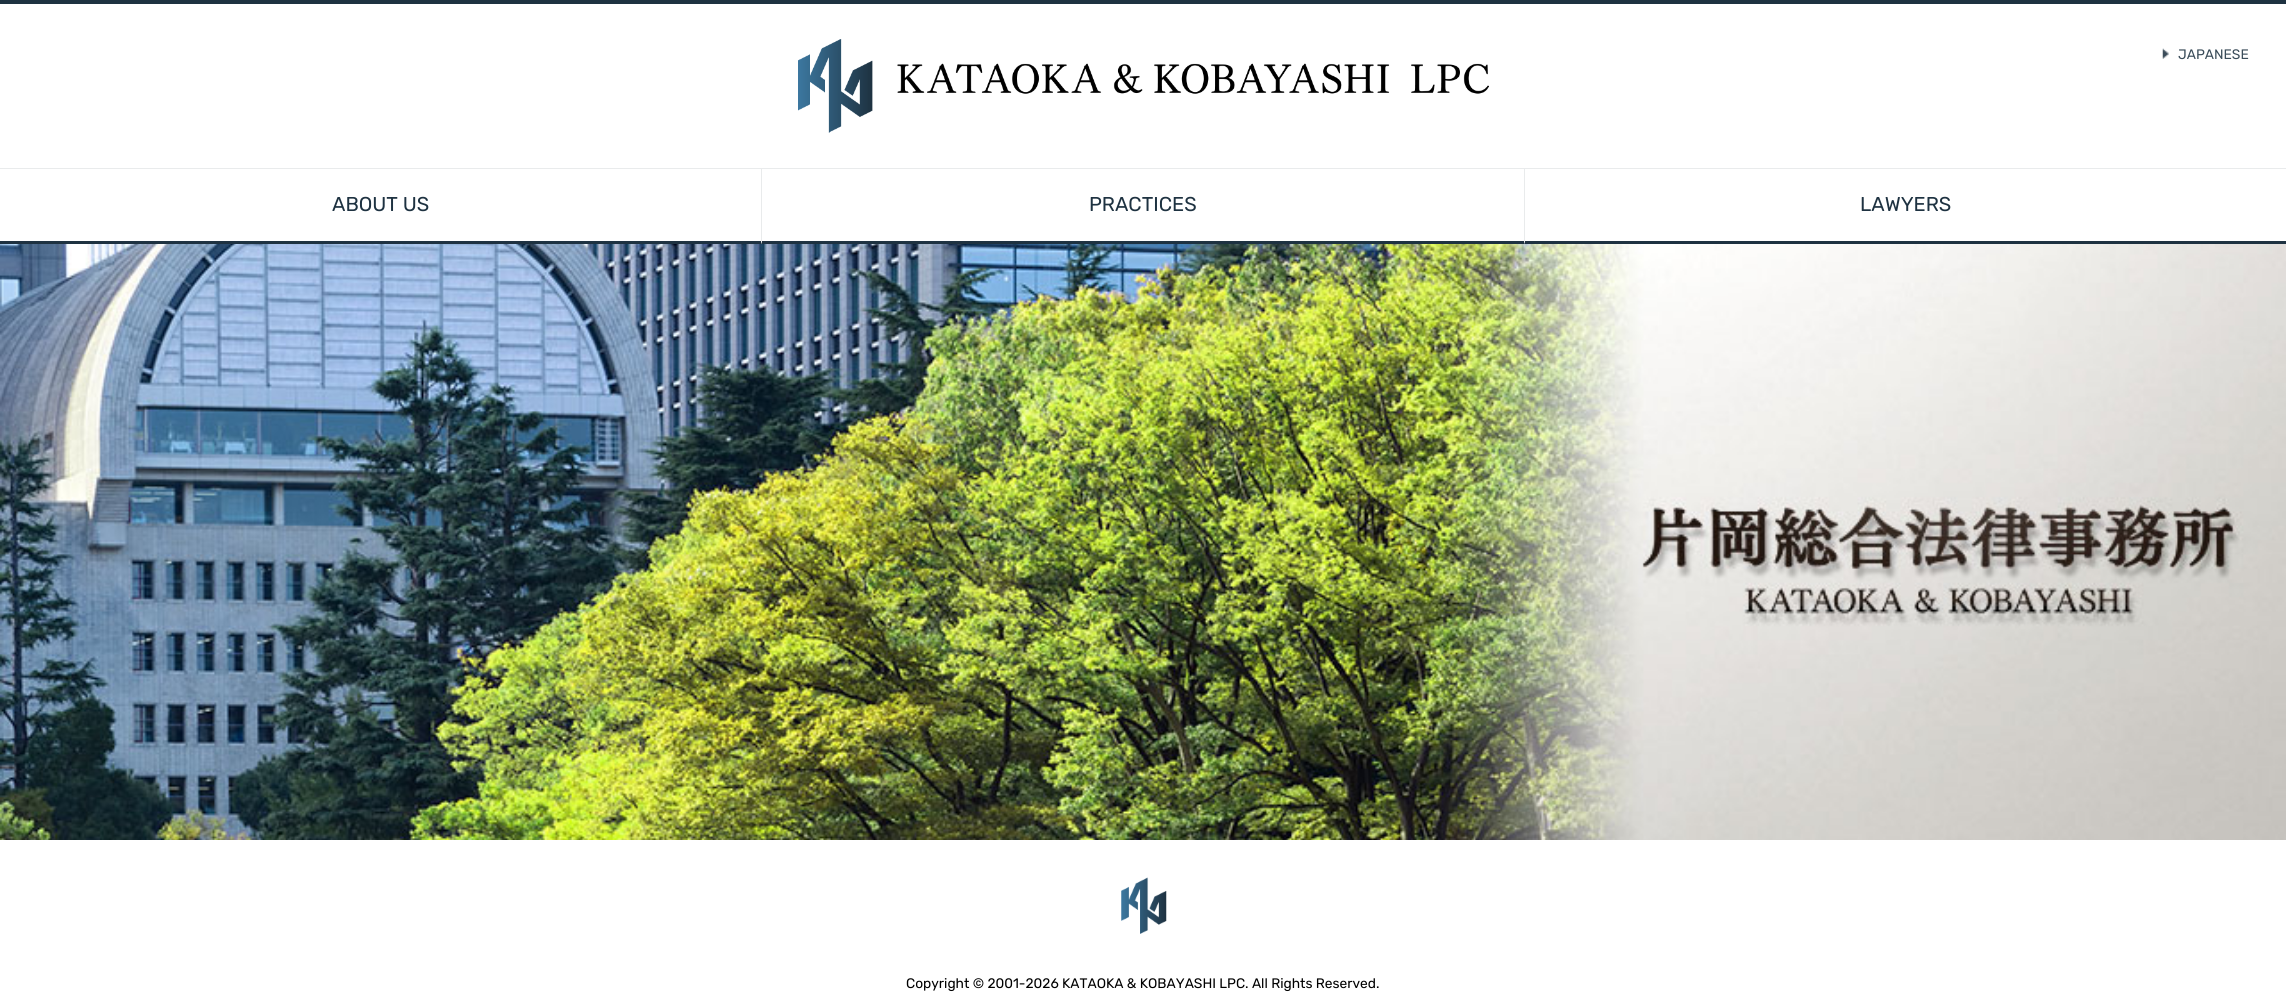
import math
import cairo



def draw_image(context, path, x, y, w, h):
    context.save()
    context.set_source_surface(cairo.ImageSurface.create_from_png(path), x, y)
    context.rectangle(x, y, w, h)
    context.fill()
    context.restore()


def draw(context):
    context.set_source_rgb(1, 1, 1)
    context.paint()
    context.set_source_rgb(30 / 255, 50 / 255, 65 / 255)
    context.rectangle(0, 0, 2286, 4)
    context.fill()
    draw_image(context, "images/1.png", 798, 39, 691, 94)
    draw_image(context, "images/2.png", 2162, 48, 7, 11)
    context.set_source_rgb(233 / 255, 235 / 255, 236 / 255)
    context.rectangle(0, 168, 2286, 1)
    context.fill()
    context.set_source_rgb(30 / 255, 50 / 255, 65 / 255)
    context.rectangle(0, 241, 761, 3)
    context.fill()
    context.new_path()
    context.move_to(1524, 244)
    context.line_to(761, 244)
    context.line_to(762, 241)
    context.line_to(1524, 241)
    context.close_path()
    context.fill()
    context.set_source_rgb(233 / 255, 235 / 255, 236 / 255)
    context.new_path()
    context.move_to(761, 244)
    context.line_to(761, 168)
    context.line_to(762, 169)
    context.line_to(762, 241)
    context.close_path()
    context.fill()
    context.set_source_rgb(30 / 255, 50 / 255, 65 / 255)
    context.new_path()
    context.move_to(2286, 244)
    context.line_to(1524, 244)
    context.line_to(1525, 241)
    context.line_to(2286, 241)
    context.close_path()
    context.fill()
    context.set_source_rgb(233 / 255, 235 / 255, 236 / 255)
    context.new_path()
    context.move_to(1524, 244)
    context.line_to(1524, 168)
    context.line_to(1525, 169)
    context.line_to(1525, 241)
    context.close_path()
    context.fill()
    draw_image(context, "images/3.png", 0, 244, 2286, 596)
    draw_image(context, "images/4.png", 1121, 877, 46, 57)
    context.select_font_face("Rubik")
    context.set_font_size(13.75)
    context.set_source_rgb(59 / 255, 77 / 255, 90 / 255)
    context.move_to(2178, 59)
    context.show_text("JAPANESE")
    context.set_font_size(20)
    context.set_source_rgb(30 / 255, 50 / 255, 65 / 255)
    context.move_to(332, 211)
    context.show_text("ABOUT US")
    context.move_to(1089, 211)
    context.show_text("PRACTICES")
    context.move_to(1860, 211)
    context.show_text("LAWYERS")
    context.set_font_size(13.75)
    context.set_source_rgb(0, 0, 0)
    context.move_to(906, 988)
    context.show_text("Copyright © 2001-2026 KATAOKA & KOBAYASHI LPC. All Rights Reserved.")


surface = cairo.ImageSurface(cairo.Format.RGB24, 2286, 1005)
context = cairo.Context(surface)
options = cairo.FontOptions()
options.set_hint_metrics(cairo.HintMetrics.OFF)
options.set_hint_style(cairo.HintStyle.NONE)
context.set_font_options(options)
context.set_miter_limit(4)
draw(context)
surface.write_to_png("out.png")
